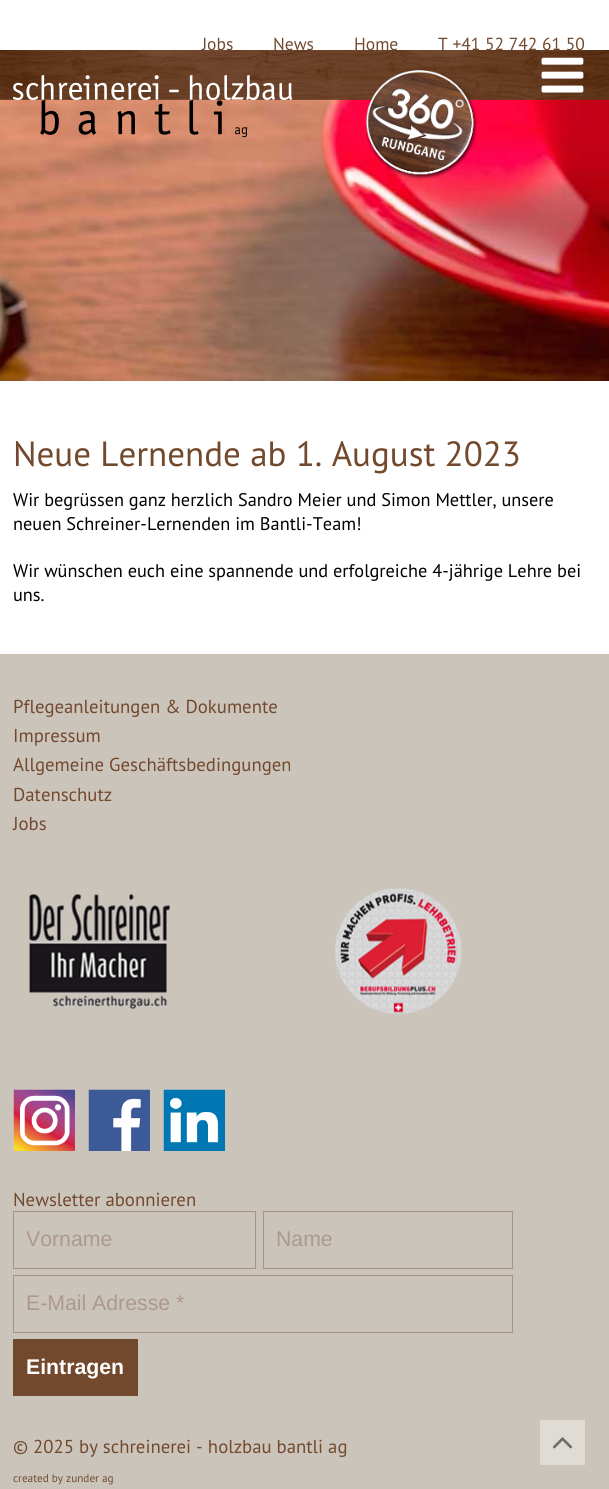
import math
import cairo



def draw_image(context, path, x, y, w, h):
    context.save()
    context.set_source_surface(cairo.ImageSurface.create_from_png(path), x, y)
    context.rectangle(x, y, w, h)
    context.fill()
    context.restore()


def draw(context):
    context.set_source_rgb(1, 1, 1)
    context.paint()
    draw_image(context, "images/6.png", 0, 99, 609, 282)
    draw_image(context, "images/3.png", 0, 50, 609, 50)
    draw_image(context, "images/1.png", 365, 70, 113, 110)
    draw_image(context, "images/2.png", 541, 57, 43, 36)
    draw_image(context, "images/4.png", 13, 75, 280, 25)
    draw_image(context, "images/5.png", 40, 100, 208, 38)
    context.set_source_rgb(203 / 255, 196 / 255, 187 / 255)
    context.rectangle(0, 654, 609, 835)
    context.fill()
    draw_image(context, "images/7.png", 29, 893, 141, 116)
    draw_image(context, "images/8.png", 335, 888, 127, 126)
    draw_image(context, "images/9.png", 13, 1089, 62, 62)
    draw_image(context, "images/10.png", 88, 1089, 62, 62)
    draw_image(context, "images/11.png", 163, 1089, 62, 62)
    context.rectangle(13.5, 1211.5, 242, 57)
    context.set_source_rgb(168 / 255, 147 / 255, 131 / 255)
    context.set_line_width(1)
    context.stroke()
    context.rectangle(263.5, 1211.5, 249, 57)
    context.stroke()
    context.rectangle(13.5, 1275.5, 499, 57)
    context.stroke()
    context.set_source_rgb(115 / 255, 73 / 255, 46 / 255)
    context.rectangle(13, 1339, 125, 57)
    context.fill()
    context.set_source_rgb(223 / 255, 219 / 255, 213 / 255)
    context.rectangle(540, 1420, 45, 45)
    context.fill()
    draw_image(context, "images/12.png", 552, 1437, 21, 12)
    context.select_font_face("PT Sans")
    context.set_font_size(17.5)
    context.set_source_rgb(115 / 255, 73 / 255, 46 / 255)
    context.move_to(202, 50)
    context.show_text("Jobs")
    context.move_to(273, 50)
    context.show_text("News")
    context.move_to(354, 50)
    context.show_text("Home")
    context.move_to(438, 50)
    context.show_text("T +41 52 742 61 50")
    context.set_font_size(35)
    context.move_to(13, 466)
    context.show_text("Neue Lernende ab 1. August 2023")
    context.set_font_size(18.3)
    context.set_source_rgb(0, 0, 0)
    context.move_to(13, 506)
    context.show_text("Wir begrüssen ganz herzlich Sandro Meier und Simon Mettler, unsere")
    context.move_to(13, 530)
    context.show_text("neuen Schreiner-Lernenden im Bantli-Team!")
    context.move_to(13, 577)
    context.show_text("Wir wünschen euch eine spannende und erfolgreiche 4-jährige Lehre bei")
    context.move_to(13, 601)
    context.show_text("uns.")
    context.set_font_size(18.75)
    context.set_source_rgb(115 / 255, 73 / 255, 46 / 255)
    context.move_to(13, 713)
    context.show_text("Pflegeanleitungen & Dokumente")
    context.move_to(13, 742)
    context.show_text("Impressum")
    context.move_to(13, 771)
    context.show_text("Allgemeine Geschäftsbedingungen")
    context.move_to(13, 801)
    context.show_text("Datenschutz")
    context.move_to(13, 830)
    context.show_text("Jobs")
    context.move_to(13, 1206)
    context.show_text("Newsletter abonnieren")
    context.select_font_face("Liberation Sans")
    context.set_font_size(21.25)
    context.set_source_rgb(172 / 255, 153 / 255, 138 / 255)
    context.move_to(26, 1246)
    context.show_text("Vorname")
    context.move_to(276, 1246)
    context.show_text("Name")
    context.move_to(26, 1310)
    context.show_text("E-Mail Adresse *")
    context.select_font_face("Liberation Sans", cairo.FontSlant.NORMAL, cairo.FontWeight.BOLD)
    context.set_source_rgb(1, 1, 1)
    context.move_to(26, 1374)
    context.show_text("Eintragen")
    context.select_font_face("PT Sans")
    context.set_font_size(18.75)
    context.set_source_rgb(115 / 255, 73 / 255, 46 / 255)
    context.move_to(13, 1453)
    context.show_text("© 2025 by schreinerei - holzbau bantli ag")
    context.set_font_size(11.25)
    context.move_to(13, 1482)
    context.show_text("created by zunder ag")


surface = cairo.ImageSurface(cairo.Format.RGB24, 609, 1489)
context = cairo.Context(surface)
options = cairo.FontOptions()
options.set_hint_metrics(cairo.HintMetrics.OFF)
options.set_hint_style(cairo.HintStyle.NONE)
context.set_font_options(options)
context.set_miter_limit(4)
draw(context)
surface.write_to_png("out.png")
